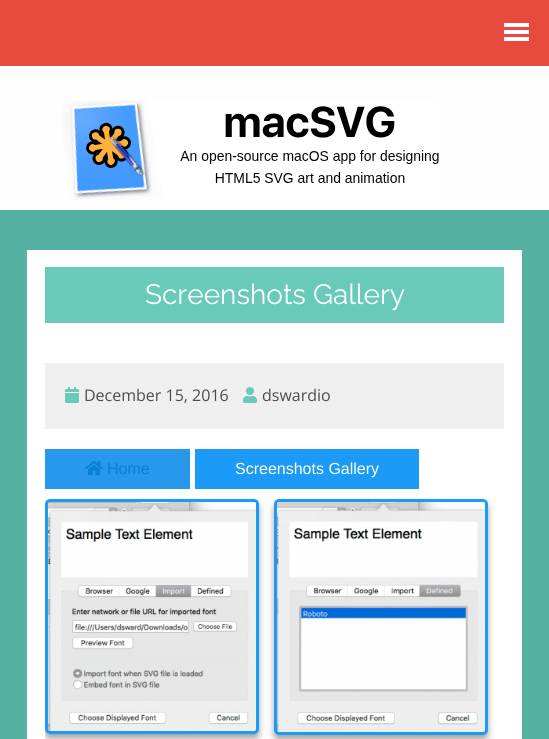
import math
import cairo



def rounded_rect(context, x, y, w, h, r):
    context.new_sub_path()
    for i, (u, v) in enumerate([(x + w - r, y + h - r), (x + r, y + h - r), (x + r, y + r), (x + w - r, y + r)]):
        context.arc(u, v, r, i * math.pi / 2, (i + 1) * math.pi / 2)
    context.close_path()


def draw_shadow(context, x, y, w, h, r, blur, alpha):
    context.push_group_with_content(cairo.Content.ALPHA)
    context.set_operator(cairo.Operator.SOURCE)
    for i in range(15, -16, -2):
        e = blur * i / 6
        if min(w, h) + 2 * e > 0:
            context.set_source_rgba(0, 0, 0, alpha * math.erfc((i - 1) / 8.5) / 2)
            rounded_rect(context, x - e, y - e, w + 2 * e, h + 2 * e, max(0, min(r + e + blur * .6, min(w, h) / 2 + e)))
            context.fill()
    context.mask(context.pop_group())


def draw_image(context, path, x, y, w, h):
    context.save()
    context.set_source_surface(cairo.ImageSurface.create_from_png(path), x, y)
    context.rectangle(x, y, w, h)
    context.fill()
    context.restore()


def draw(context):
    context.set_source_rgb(85 / 255, 178 / 255, 162 / 255)
    context.paint()
    context.set_source_rgb(254 / 255, 254 / 255, 254 / 255)
    context.rectangle(0, 67, 549, 143)
    context.fill()
    context.set_source_rgb(230 / 255, 75 / 255, 62 / 255)
    context.rectangle(0, 0, 549, 66)
    context.fill()
    context.set_source_rgb(1, 1, 1)
    context.rectangle(0, 66, 549, 1)
    context.fill()
    context.rectangle(504, 23, 25, 4)
    context.fill()
    context.rectangle(504, 30, 25, 4)
    context.fill()
    context.rectangle(504, 37, 25, 4)
    context.fill()
    draw_image(context, "images/1.png", 62, 100, 377, 100)
    context.rectangle(27, 250, 495, 489)
    context.fill()
    context.set_source_rgb(106 / 255, 202 / 255, 185 / 255)
    context.rectangle(45, 267, 459, 56)
    context.fill()
    context.set_source_rgb(239 / 255, 239 / 255, 239 / 255)
    context.rectangle(45, 363, 459, 66)
    context.fill()
    draw_image(context, "images/2.png", 65, 387, 14, 16)
    draw_image(context, "images/3.png", 243, 387, 14, 16)
    context.set_source_rgb(39 / 255, 152 / 255, 235 / 255)
    context.rectangle(45, 449, 145, 40)
    context.fill()
    draw_image(context, "images/4.png", 85, 461, 18, 14)
    context.set_source_rgb(27 / 255, 154 / 255, 247 / 255)
    context.rectangle(195, 449, 224, 40)
    context.fill()
    context.save()
    context.rectangle(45, 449, 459, 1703)
    context.clip()
    context.set_source_rgb(34 / 255, 25 / 255, 25 / 255)
    draw_shadow(context, 45, 504, 214, 235, 5, 3.5, 0.4)
    context.restore()
    rounded_rect(context, 46.5, 500.5, 211, 232, 3.5)
    context.set_line_width(3)
    context.stroke()
    draw_image(context, "images/5.png", 48, 502, 208, 229)
    context.set_source_rgb(34 / 255, 25 / 255, 25 / 255)
    draw_shadow(context, 274, 504, 214, 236, 5, 3.5, 0.4)
    rounded_rect(context, 275.5, 500.5, 211, 233, 3.5)
    context.set_source_rgb(27 / 255, 154 / 255, 247 / 255)
    context.stroke()
    draw_image(context, "images/6.png", 277, 502, 208, 230)
    context.select_font_face("Raleway")
    context.set_font_size(28)
    context.set_source_rgb(1, 1, 1)
    context.move_to(145, 304)
    context.show_text("Screenshots Gallery")
    context.select_font_face("Open Sans")
    context.set_font_size(16)
    context.set_source_rgb(77 / 255, 77 / 255, 77 / 255)
    context.move_to(84, 401)
    context.show_text("December 15, 2016")
    context.move_to(262, 401)
    context.show_text("dswardio")
    context.select_font_face("Liberation Sans")
    context.set_source_rgb(8 / 255, 128 / 255, 215 / 255)
    context.move_to(107, 474)
    context.show_text("Home")
    context.set_source_rgb(1, 1, 1)
    context.move_to(235, 474)
    context.show_text("Screenshots Gallery")


surface = cairo.ImageSurface(cairo.Format.RGB24, 549, 739)
context = cairo.Context(surface)
options = cairo.FontOptions()
options.set_hint_metrics(cairo.HintMetrics.OFF)
options.set_hint_style(cairo.HintStyle.NONE)
context.set_font_options(options)
context.set_miter_limit(4)
draw(context)
surface.write_to_png("out.png")
